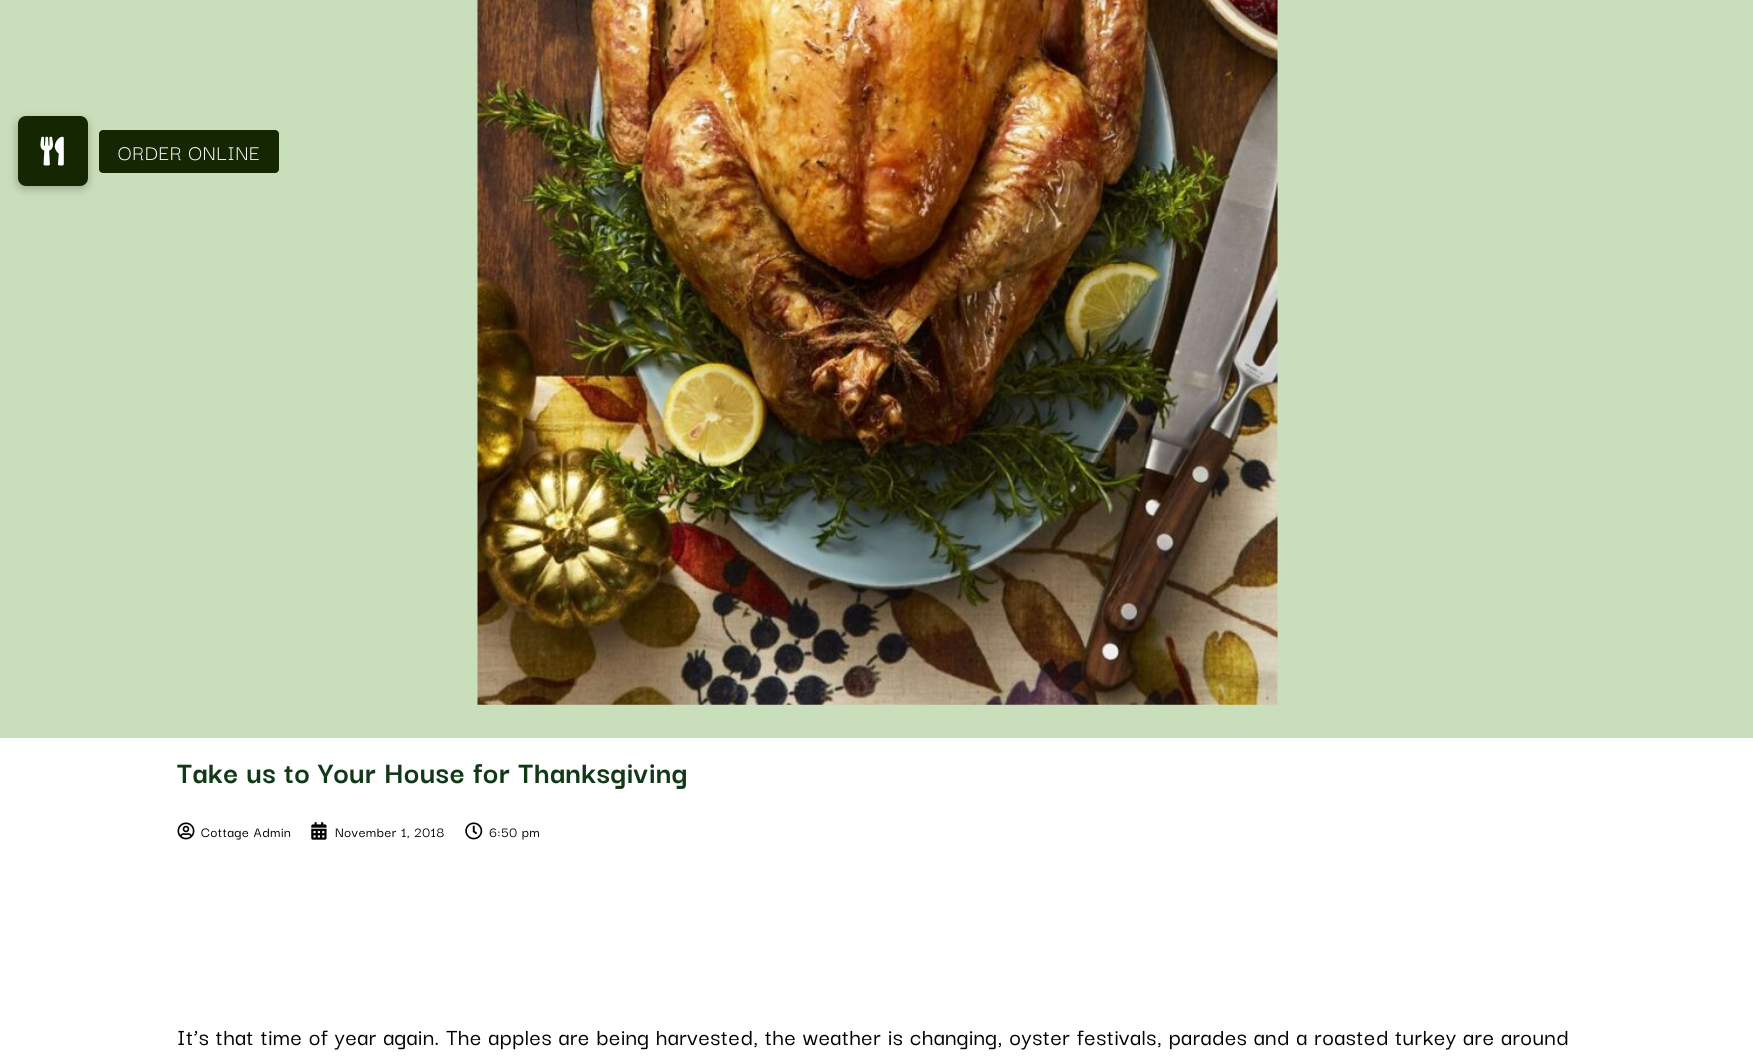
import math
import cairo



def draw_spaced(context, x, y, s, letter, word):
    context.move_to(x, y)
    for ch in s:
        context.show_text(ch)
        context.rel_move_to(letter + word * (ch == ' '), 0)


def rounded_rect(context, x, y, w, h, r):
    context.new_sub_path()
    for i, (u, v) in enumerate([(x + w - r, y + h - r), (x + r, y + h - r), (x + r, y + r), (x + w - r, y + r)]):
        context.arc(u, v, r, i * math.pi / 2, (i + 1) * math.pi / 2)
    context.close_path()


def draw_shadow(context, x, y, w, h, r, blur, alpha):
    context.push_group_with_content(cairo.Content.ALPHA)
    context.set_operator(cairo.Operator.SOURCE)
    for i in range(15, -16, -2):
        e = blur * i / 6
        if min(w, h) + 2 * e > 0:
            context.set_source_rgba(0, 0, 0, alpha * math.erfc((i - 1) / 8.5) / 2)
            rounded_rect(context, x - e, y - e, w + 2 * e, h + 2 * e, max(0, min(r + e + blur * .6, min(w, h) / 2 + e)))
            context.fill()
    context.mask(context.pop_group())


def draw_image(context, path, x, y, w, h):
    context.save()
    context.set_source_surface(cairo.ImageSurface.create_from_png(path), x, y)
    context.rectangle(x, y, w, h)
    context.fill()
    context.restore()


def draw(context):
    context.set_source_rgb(1, 1, 1)
    context.paint()
    context.set_source_rgb(201 / 255, 222 / 255, 186 / 255)
    context.rectangle(0, 0, 1753, 738)
    context.fill()
    context.set_source_rgb(0, 0, 0)
    draw_shadow(context, 16, 118, 73, 72, 9, 4, 0.2)
    context.set_source_rgb(21 / 255, 39 / 255, 2 / 255)
    rounded_rect(context, 18, 116, 70, 70, 8)
    context.fill()
    draw_image(context, "images/1.png", 40, 136, 24, 30)
    rounded_rect(context, 99, 130, 180, 43, 4)
    context.fill()
    draw_image(context, "images/2.png", 477, 0, 801, 705)
    draw_image(context, "images/3.png", 177, 822, 18, 18)
    draw_image(context, "images/4.png", 311, 822, 16, 18)
    draw_image(context, "images/5.png", 465, 822, 18, 18)
    context.select_font_face("Darker Grotesque")
    context.set_font_size(22.5)
    context.set_source_rgb(1, 1, 1)
    draw_spaced(context, 118, 160, "ORDER ONLINE", 0.75, 0)
    context.select_font_face("Darker Grotesque", cairo.FontSlant.NORMAL, cairo.FontWeight.BOLD)
    context.set_font_size(32.5)
    context.set_source_rgb(18 / 255, 57 / 255, 23 / 255)
    draw_spaced(context, 177, 783, "Take us to Your House for Thanksgiving", 0.62, 0)
    context.select_font_face("Darker Grotesque Medium")
    context.set_font_size(15)
    context.set_source_rgb(0, 0, 0)
    draw_spaced(context, 201, 837, "Cottage Admin", 0.62, 0)
    draw_spaced(context, 335, 837, "November 1, 2018", 0.62, 0)
    draw_spaced(context, 489, 837, "6:50 pm", 0.62, 0)
    context.set_font_size(25)
    draw_spaced(context, 177, 1045, "It’s that time of year again. The apples are being harvested, the weather is changing, oyster festivals, parades and a roasted turkey are around", 0.62, 0)


surface = cairo.ImageSurface(cairo.Format.RGB24, 1753, 1058)
context = cairo.Context(surface)
options = cairo.FontOptions()
options.set_hint_metrics(cairo.HintMetrics.OFF)
options.set_hint_style(cairo.HintStyle.NONE)
context.set_font_options(options)
context.set_miter_limit(4)
draw(context)
surface.write_to_png("out.png")
